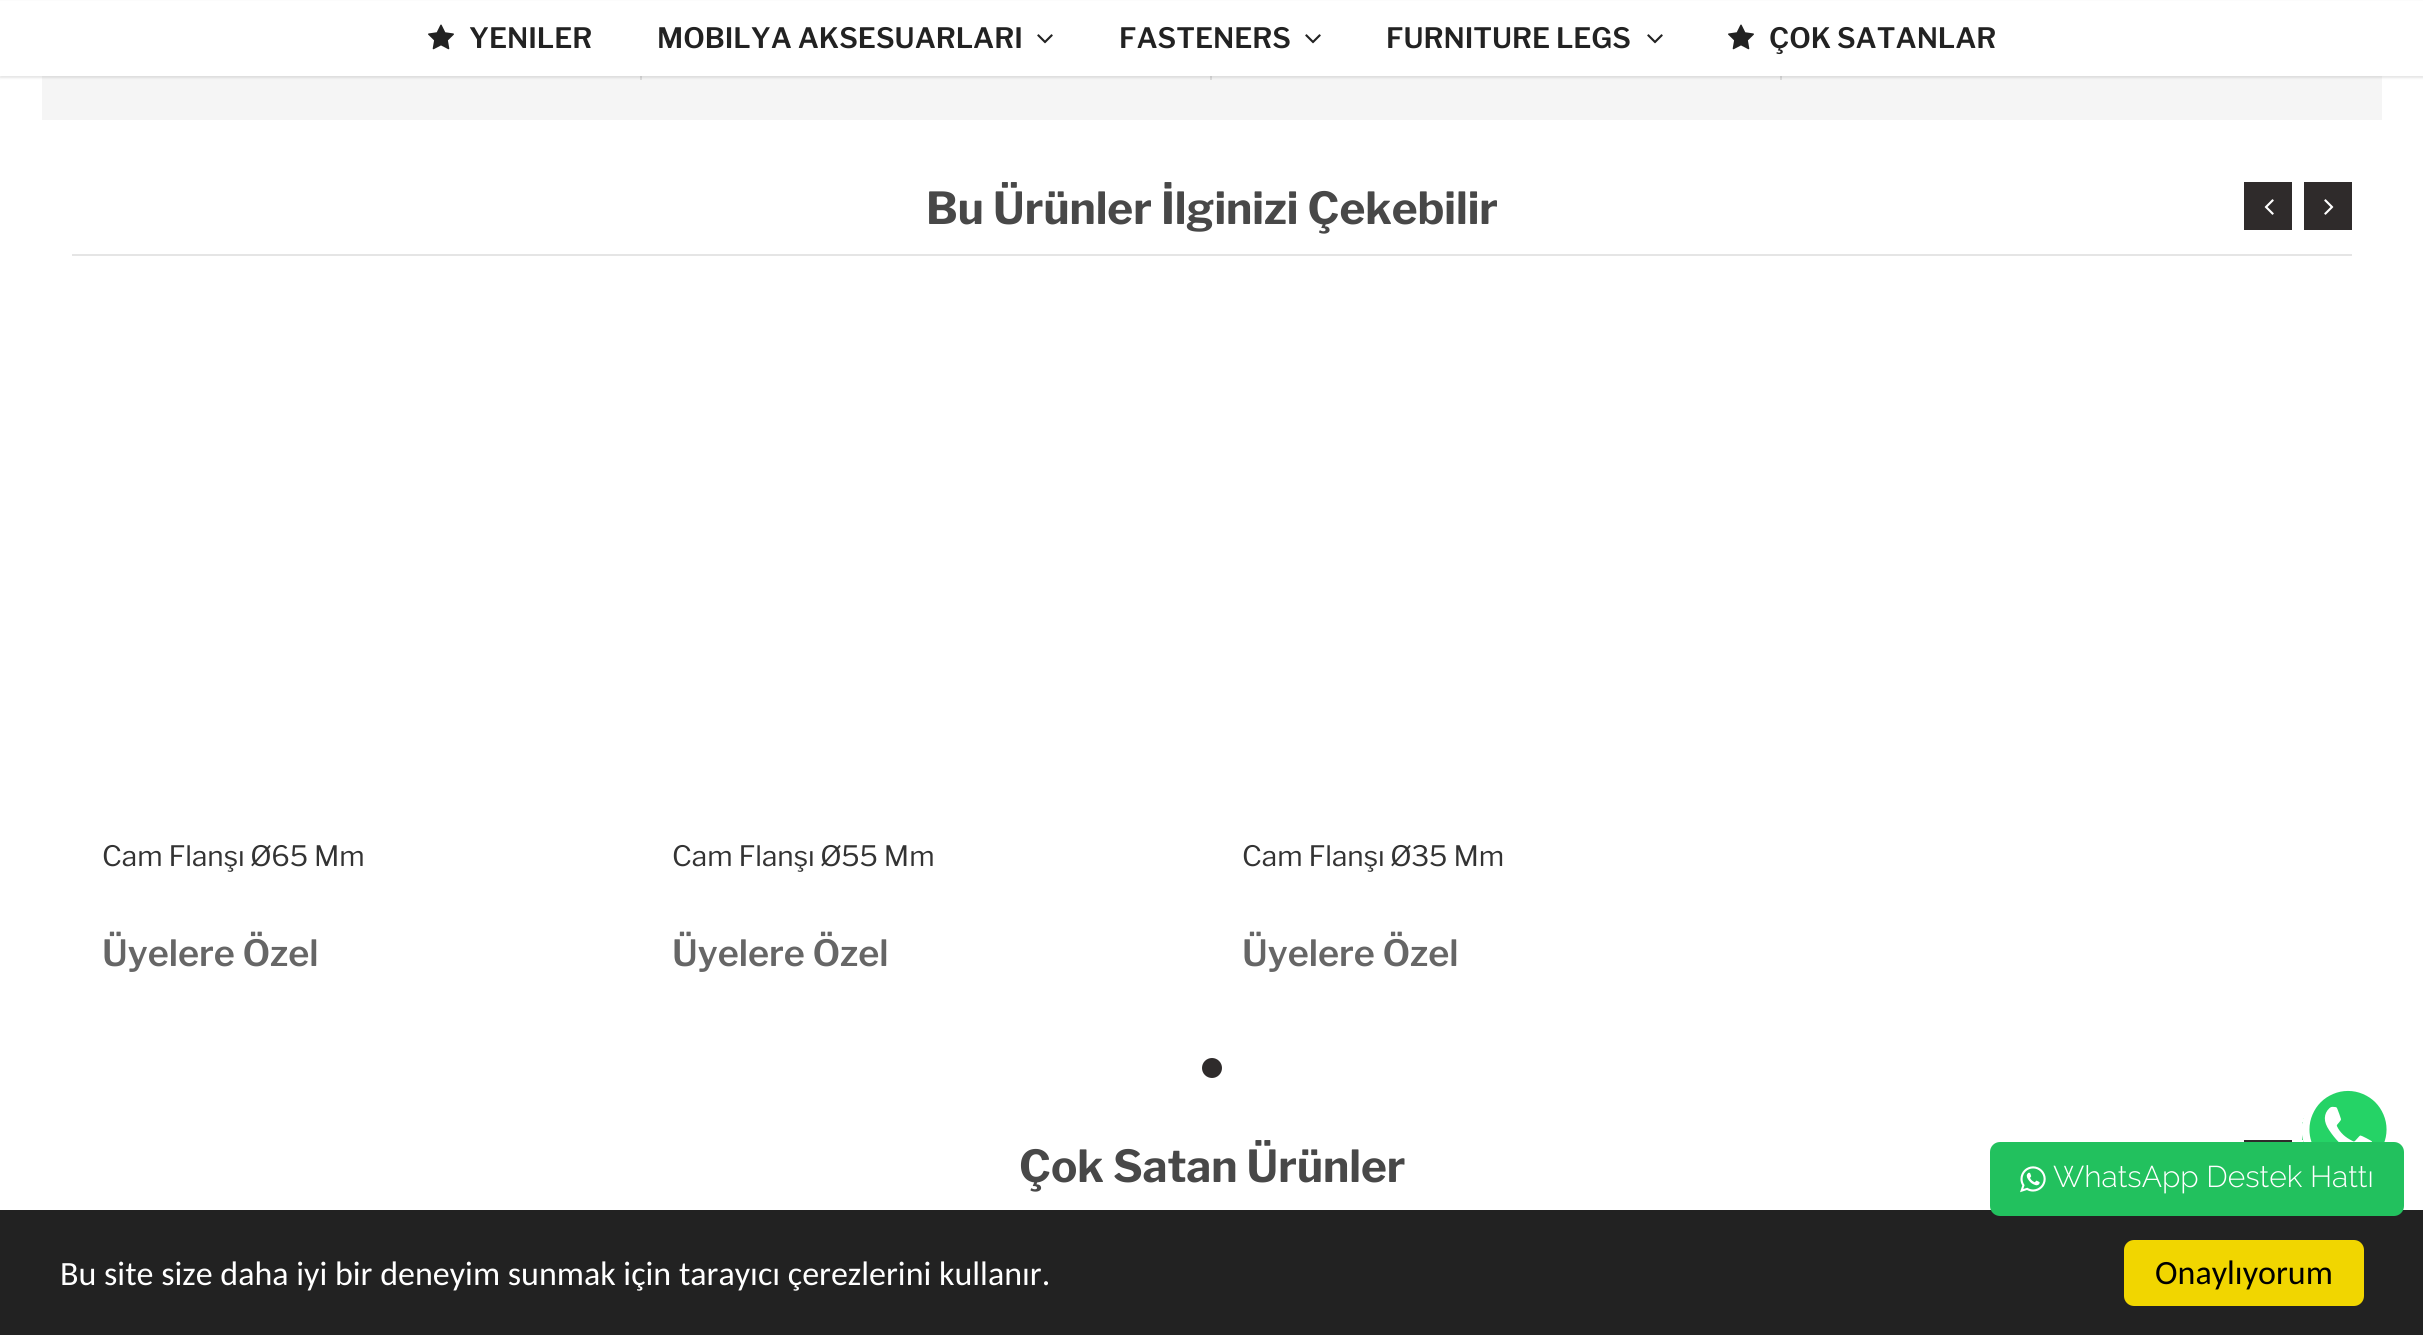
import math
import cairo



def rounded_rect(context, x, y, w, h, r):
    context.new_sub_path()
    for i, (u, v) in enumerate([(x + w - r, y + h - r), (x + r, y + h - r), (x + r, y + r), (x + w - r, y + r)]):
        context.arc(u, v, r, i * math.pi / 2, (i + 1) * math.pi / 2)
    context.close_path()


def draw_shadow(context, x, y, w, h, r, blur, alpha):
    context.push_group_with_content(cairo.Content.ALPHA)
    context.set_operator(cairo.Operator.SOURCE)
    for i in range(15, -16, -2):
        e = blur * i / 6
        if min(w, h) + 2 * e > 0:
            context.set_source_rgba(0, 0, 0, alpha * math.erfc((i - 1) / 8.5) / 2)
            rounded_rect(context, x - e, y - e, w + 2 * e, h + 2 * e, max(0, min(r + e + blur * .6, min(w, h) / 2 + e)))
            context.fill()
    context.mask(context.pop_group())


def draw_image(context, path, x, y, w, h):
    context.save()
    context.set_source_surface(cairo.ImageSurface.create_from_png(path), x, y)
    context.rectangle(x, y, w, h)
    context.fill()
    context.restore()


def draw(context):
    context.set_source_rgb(1, 1, 1)
    context.paint()
    context.set_source_rgb(245 / 255, 245 / 255, 245 / 255)
    context.rectangle(42, 76, 2340, 44)
    context.fill()
    context.set_source_rgb(220 / 255, 220 / 255, 220 / 255)
    context.rectangle(640, 76, 2, 4)
    context.fill()
    context.rectangle(1210, 76, 2, 4)
    context.fill()
    context.rectangle(1780, 76, 2, 4)
    context.fill()
    context.set_source_rgb(0, 0, 0)
    draw_shadow(context, 0, 2, 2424, 76, 0, 1, 0.1)
    context.set_source_rgb(1, 1, 1)
    context.rectangle(0, 1, 2423, 75)
    context.fill()
    draw_image(context, "images/1.png", 428, 24, 26, 26)
    draw_image(context, "images/2.png", 1037, 34, 16, 10)
    draw_image(context, "images/2.png", 1305, 34, 16, 10)
    draw_image(context, "images/2.png", 1647, 34, 16, 10)
    draw_image(context, "images/1.png", 1728, 24, 26, 26)
    context.set_source_rgb(229 / 255, 229 / 255, 229 / 255)
    context.rectangle(72, 254, 2280, 2)
    context.fill()
    context.set_source_rgb(47 / 255, 43 / 255, 43 / 255)
    context.rectangle(2244, 182, 48, 48)
    context.fill()
    draw_image(context, "images/3.png", 2264, 199, 10, 16)
    context.rectangle(2304, 182, 48, 48)
    context.fill()
    draw_image(context, "images/4.png", 2324, 199, 10, 16)
    context.arc(1212, 1068, 9, 0, 2 * math.pi)
    context.fill_preserve()
    context.stroke()
    context.rectangle(2244, 1140, 48, 2)
    context.fill()
    gradient = cairo.RadialGradient(2347, 1131, 0, 2347, 1131, 72)
    gradient.add_color_stop_rgba(0.63, 37 / 255, 211 / 255, 102 / 255, 1)
    gradient.add_color_stop_rgba(0.63, 37 / 255, 211 / 255, 102 / 255, 0)
    context.set_source(gradient)
    context.rectangle(2302, 1090, 85, 52)
    context.fill()
    draw_image(context, "images/5.png", 2302, 1086, 90, 56)
    context.set_source_rgb(34 / 255, 34 / 255, 34 / 255)
    context.rectangle(0, 1210, 2423, 125)
    context.fill()
    context.set_source_rgb(34 / 255, 193 / 255, 94 / 255)
    rounded_rect(context, 1990, 1142, 414, 74, 10)
    context.fill()
    draw_image(context, "images/6.png", 2020, 1166, 26, 27)
    context.set_source_rgb(241 / 255, 214 / 255, 0)
    rounded_rect(context, 2124, 1240, 240, 66, 10)
    context.fill()
    context.select_font_face("Libre Franklin SemiBold")
    context.set_font_size(28)
    context.set_source_rgb(34 / 255, 34 / 255, 34 / 255)
    context.move_to(469, 48)
    context.show_text("YENILER")
    context.move_to(657, 48)
    context.show_text("MOBILYA AKSESUARLARI")
    context.move_to(1119, 48)
    context.show_text("FASTENERS")
    context.move_to(1386, 48)
    context.show_text("FURNITURE LEGS")
    context.move_to(1769, 48)
    context.show_text("ÇOK SATANLAR")
    context.select_font_face("Libre Franklin", cairo.FontSlant.NORMAL, cairo.FontWeight.BOLD)
    context.set_font_size(44)
    context.set_source_rgb(72 / 255, 72 / 255, 72 / 255)
    context.move_to(926, 224)
    context.show_text("Bu Ürünler İlginizi Çekebilir")
    context.select_font_face("Libre Franklin")
    context.set_font_size(28)
    context.set_source_rgb(51 / 255, 51 / 255, 51 / 255)
    context.move_to(102, 866)
    context.show_text("Cam Flanşı Ø65 Mm")
    context.select_font_face("Libre Franklin SemiBold")
    context.set_font_size(36)
    context.set_source_rgb(102 / 255, 102 / 255, 102 / 255)
    context.move_to(102, 966)
    context.show_text("Üyelere Özel")
    context.select_font_face("Libre Franklin")
    context.set_font_size(28)
    context.set_source_rgb(51 / 255, 51 / 255, 51 / 255)
    context.move_to(672, 866)
    context.show_text("Cam Flanşı Ø55 Mm")
    context.select_font_face("Libre Franklin SemiBold")
    context.set_font_size(36)
    context.set_source_rgb(102 / 255, 102 / 255, 102 / 255)
    context.move_to(672, 966)
    context.show_text("Üyelere Özel")
    context.select_font_face("Libre Franklin")
    context.set_font_size(28)
    context.set_source_rgb(51 / 255, 51 / 255, 51 / 255)
    context.move_to(1242, 866)
    context.show_text("Cam Flanşı Ø35 Mm")
    context.select_font_face("Libre Franklin SemiBold")
    context.set_font_size(36)
    context.set_source_rgb(102 / 255, 102 / 255, 102 / 255)
    context.move_to(1242, 966)
    context.show_text("Üyelere Özel")
    context.select_font_face("Libre Franklin", cairo.FontSlant.NORMAL, cairo.FontWeight.BOLD)
    context.set_font_size(44)
    context.set_source_rgb(72 / 255, 72 / 255, 72 / 255)
    context.move_to(1019, 1182)
    context.show_text("Çok Satan Ürünler")
    context.select_font_face("Raleway Light")
    context.set_font_size(30)
    context.set_source_rgb(1, 1, 1)
    context.move_to(2053, 1187)
    context.show_text("WhatsApp Destek Hattı")
    context.select_font_face("Carlito")
    context.set_font_size(34)
    context.move_to(60, 1285)
    context.show_text("Bu site size daha iyi bir deneyim sunmak için tarayıcı çerezlerini kullanır.")
    context.set_source_rgb(0, 0, 0)
    context.move_to(2155, 1284)
    context.show_text("Onaylıyorum")


surface = cairo.ImageSurface(cairo.Format.RGB24, 2423, 1335)
context = cairo.Context(surface)
options = cairo.FontOptions()
options.set_hint_metrics(cairo.HintMetrics.OFF)
options.set_hint_style(cairo.HintStyle.NONE)
context.set_font_options(options)
context.set_miter_limit(4)
draw(context)
surface.write_to_png("out.png")
